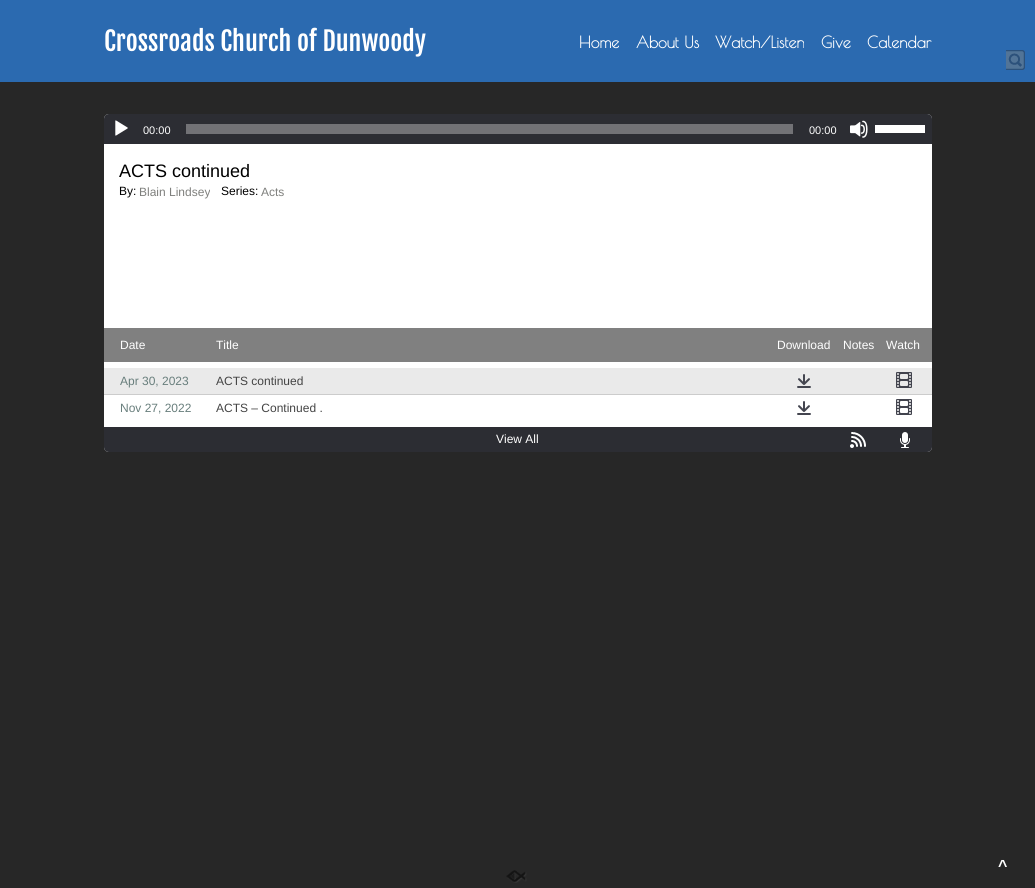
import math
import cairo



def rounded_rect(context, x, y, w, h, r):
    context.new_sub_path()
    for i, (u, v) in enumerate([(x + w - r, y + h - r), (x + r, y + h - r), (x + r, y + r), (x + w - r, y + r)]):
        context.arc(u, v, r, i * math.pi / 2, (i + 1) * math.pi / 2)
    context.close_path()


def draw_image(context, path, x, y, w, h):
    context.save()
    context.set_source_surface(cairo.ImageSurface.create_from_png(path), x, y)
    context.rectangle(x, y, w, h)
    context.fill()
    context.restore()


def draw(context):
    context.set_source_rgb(39 / 255, 39 / 255, 39 / 255)
    context.paint()
    context.set_source_rgb(43 / 255, 106 / 255, 176 / 255)
    context.rectangle(0, 0, 1035, 82)
    context.fill()
    draw_image(context, "images/1.png", 1006, 50, 19, 20)
    context.set_source_rgb(1, 1, 1)
    rounded_rect(context, 104, 114, 828, 338, 5)
    context.fill()
    context.set_source_rgb(44 / 255, 45 / 255, 51 / 255)
    context.new_path()
    context.move_to(109, 114)
    context.line_to(927, 114)
    context.curve_to(930, 114, 932, 116, 932, 119)
    context.line_to(932, 144)
    context.line_to(104, 144)
    context.line_to(104, 119)
    context.curve_to(104, 116, 106, 114, 109, 114)
    context.close_path()
    context.fill()
    draw_image(context, "images/2.png", 115, 120, 13, 16)
    context.set_source_rgb(114 / 255, 114 / 255, 118 / 255)
    context.rectangle(186, 124, 607, 10)
    context.fill()
    draw_image(context, "images/3.png", 850, 120, 18, 18)
    context.set_source_rgb(1, 1, 1)
    context.rectangle(875, 125, 50, 8)
    context.fill()
    context.set_source_rgb(128 / 255, 128 / 255, 128 / 255)
    context.rectangle(104, 328, 828, 34)
    context.fill()
    context.set_source_rgb(234 / 255, 234 / 255, 234 / 255)
    context.rectangle(104, 368, 828, 26)
    context.fill()
    draw_image(context, "images/4.png", 797, 374, 14, 14)
    draw_image(context, "images/5.png", 896, 372, 16, 16)
    context.set_source_rgb(204 / 255, 204 / 255, 204 / 255)
    context.rectangle(104, 394, 828, 1)
    context.fill()
    draw_image(context, "images/6.png", 797, 401, 14, 14)
    draw_image(context, "images/7.png", 896, 399, 16, 16)
    context.set_source_rgb(44 / 255, 45 / 255, 51 / 255)
    context.new_path()
    context.move_to(104, 427)
    context.line_to(932, 427)
    context.line_to(932, 447)
    context.curve_to(932, 450, 930, 452, 927, 452)
    context.line_to(109, 452)
    context.curve_to(106, 452, 104, 450, 104, 447)
    context.close_path()
    context.fill()
    draw_image(context, "images/8.png", 850, 432, 16, 16)
    draw_image(context, "images/9.png", 900, 432, 10, 16)
    draw_image(context, "images/10.png", 506, 870, 21, 13)
    context.select_font_face("Fjalla One")
    context.set_font_size(26)
    context.set_source_rgb(1, 1, 1)
    context.move_to(104, 51)
    context.show_text("Crossroads Church of Dunwoody")
    context.select_font_face("Poiret One", cairo.FontSlant.NORMAL, cairo.FontWeight.BOLD)
    context.set_font_size(16)
    context.move_to(579, 48)
    context.show_text("Home")
    context.move_to(636, 48)
    context.show_text("About Us")
    context.move_to(715, 48)
    context.show_text("Watch/Listen")
    context.move_to(821, 48)
    context.show_text("Give")
    context.move_to(867, 48)
    context.show_text("Calendar")
    context.select_font_face("Liberation Sans")
    context.set_font_size(11)
    context.move_to(143, 134)
    context.show_text("00:00")
    context.move_to(809, 134)
    context.show_text("00:00")
    context.set_font_size(18)
    context.set_source_rgb(0, 0, 0)
    context.move_to(119, 177)
    context.show_text("ACTS continued")
    context.set_font_size(12)
    context.move_to(119, 195)
    context.show_text("By:")
    context.set_source_rgb(127 / 255, 128 / 255, 125 / 255)
    context.move_to(139, 196)
    context.show_text("Blain Lindsey")
    context.set_source_rgb(0, 0, 0)
    context.move_to(221, 195)
    context.show_text("Series:")
    context.set_source_rgb(127 / 255, 128 / 255, 125 / 255)
    context.move_to(261, 196)
    context.show_text("Acts")
    context.set_source_rgb(1, 1, 1)
    context.move_to(120, 349)
    context.show_text("Date")
    context.move_to(216, 349)
    context.show_text("Title")
    context.move_to(777, 349)
    context.show_text("Download")
    context.move_to(843, 349)
    context.show_text("Notes")
    context.move_to(886, 349)
    context.show_text("Watch")
    context.set_source_rgb(104 / 255, 126 / 255, 124 / 255)
    context.move_to(120, 385)
    context.show_text("Apr 30, 2023")
    context.set_source_rgb(68 / 255, 68 / 255, 68 / 255)
    context.move_to(216, 385)
    context.show_text("ACTS continued")
    context.set_source_rgb(104 / 255, 126 / 255, 124 / 255)
    context.move_to(120, 412)
    context.show_text("Nov 27, 2022")
    context.set_source_rgb(68 / 255, 68 / 255, 68 / 255)
    context.move_to(216, 412)
    context.show_text("ACTS – Continued .")
    context.set_source_rgb(1, 1, 1)
    context.move_to(496, 443)
    context.show_text("View All")
    context.select_font_face("Liberation Sans", cairo.FontSlant.NORMAL, cairo.FontWeight.BOLD)
    context.set_font_size(16)
    context.move_to(998, 871)
    context.show_text("^")


surface = cairo.ImageSurface(cairo.Format.RGB24, 1035, 888)
context = cairo.Context(surface)
options = cairo.FontOptions()
options.set_hint_metrics(cairo.HintMetrics.OFF)
options.set_hint_style(cairo.HintStyle.NONE)
context.set_font_options(options)
context.set_miter_limit(4)
draw(context)
surface.write_to_png("out.png")
